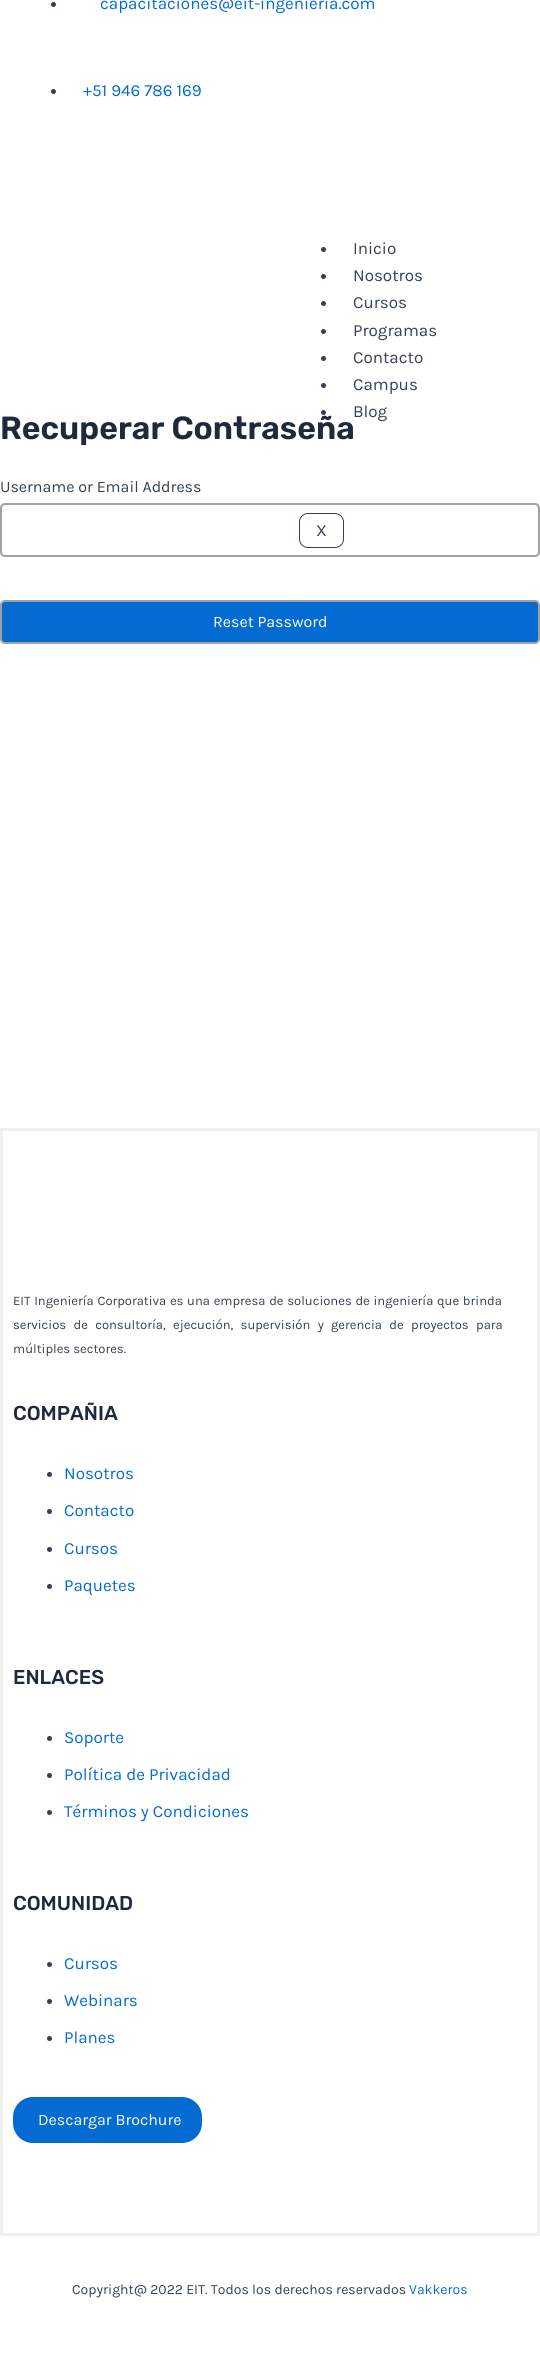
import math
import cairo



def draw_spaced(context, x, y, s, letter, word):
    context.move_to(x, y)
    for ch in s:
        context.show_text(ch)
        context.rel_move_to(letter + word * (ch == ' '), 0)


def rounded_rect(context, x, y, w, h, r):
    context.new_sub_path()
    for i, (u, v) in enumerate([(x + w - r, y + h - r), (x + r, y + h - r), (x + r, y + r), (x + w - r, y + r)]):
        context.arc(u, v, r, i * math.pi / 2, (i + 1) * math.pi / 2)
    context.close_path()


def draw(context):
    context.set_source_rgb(1, 1, 1)
    context.paint()
    context.set_source_rgb(51 / 255, 65 / 255, 85 / 255)
    context.arc(53.5, 4.5, 2.5, 0, 2 * math.pi)
    context.fill()
    context.arc(53.5, 91.5, 2.5, 0, 2 * math.pi)
    context.fill()
    context.arc(323.5, 249.5, 2.5, 0, 2 * math.pi)
    context.fill()
    context.arc(323.5, 276.5, 2.5, 0, 2 * math.pi)
    context.fill()
    context.arc(323.5, 303.5, 2.5, 0, 2 * math.pi)
    context.fill()
    context.arc(323.5, 331.5, 2.5, 0, 2 * math.pi)
    context.fill()
    context.arc(323.5, 358.5, 2.5, 0, 2 * math.pi)
    context.fill()
    context.arc(323.5, 385.5, 2.5, 0, 2 * math.pi)
    context.fill()
    context.arc(323.5, 412.5, 2.5, 0, 2 * math.pi)
    context.fill()
    rounded_rect(context, 1, 504, 538, 52, 4)
    context.set_source_rgb(161 / 255, 161 / 255, 161 / 255)
    context.stroke()
    rounded_rect(context, 299.5, 513.5, 44, 34, 8.5)
    context.set_source_rgb(51 / 255, 65 / 255, 85 / 255)
    context.set_line_width(1)
    context.stroke()
    context.set_source_rgb(4 / 255, 107 / 255, 210 / 255)
    rounded_rect(context, 1, 601, 538, 42, 4)
    context.fill_preserve()
    context.set_source_rgb(161 / 255, 161 / 255, 161 / 255)
    context.set_line_width(2)
    context.stroke()
    context.rectangle(1.5, 1129.5, 537, 1105)
    context.set_source_rgb(241 / 255, 241 / 255, 241 / 255)
    context.set_line_width(3)
    context.stroke()
    context.set_source_rgb(51 / 255, 65 / 255, 85 / 255)
    context.arc(49.5, 1474.5, 2.5, 0, 2 * math.pi)
    context.fill()
    context.arc(49.5, 1511.5, 2.5, 0, 2 * math.pi)
    context.fill()
    context.arc(49.5, 1549.5, 2.5, 0, 2 * math.pi)
    context.fill()
    context.arc(49.5, 1586.5, 2.5, 0, 2 * math.pi)
    context.fill()
    context.arc(49.5, 1738.5, 2.5, 0, 2 * math.pi)
    context.fill()
    context.arc(49.5, 1775.5, 2.5, 0, 2 * math.pi)
    context.fill()
    context.arc(49.5, 1812.5, 2.5, 0, 2 * math.pi)
    context.fill()
    context.arc(49.5, 1964.5, 2.5, 0, 2 * math.pi)
    context.fill()
    context.arc(49.5, 2001.5, 2.5, 0, 2 * math.pi)
    context.fill()
    context.arc(49.5, 2038.5, 2.5, 0, 2 * math.pi)
    context.fill()
    context.set_source_rgb(4 / 255, 107 / 255, 210 / 255)
    rounded_rect(context, 13, 2097, 189, 46, 20)
    context.fill()
    context.select_font_face("Karla")
    context.set_font_size(17)
    context.move_to(100, 9)
    context.show_text("capacitaciones@eit-ingenieria.com")
    context.move_to(83, 96)
    context.show_text("+51 946 786 169")
    context.set_source_rgb(51 / 255, 65 / 255, 85 / 255)
    context.move_to(353, 254)
    context.show_text("Inicio")
    context.move_to(353, 281)
    context.show_text("Nosotros")
    context.move_to(353, 308)
    context.show_text("Cursos")
    context.move_to(353, 336)
    context.show_text("Programas")
    context.move_to(353, 363)
    context.show_text("Contacto")
    context.move_to(353, 390)
    context.show_text("Campus")
    context.move_to(353, 417)
    context.show_text("Blog")
    context.move_to(316, 536)
    context.show_text("X")
    context.select_font_face("Rubik SemiBold")
    context.set_font_size(32)
    context.set_source_rgb(30 / 255, 41 / 255, 59 / 255)
    context.move_to(0, 439)
    context.show_text("Recuperar Contraseña")
    context.select_font_face("Karla")
    context.set_font_size(16)
    context.set_source_rgb(51 / 255, 65 / 255, 85 / 255)
    context.move_to(0, 492)
    context.show_text("Username or Email Address")
    context.set_source_rgb(1, 1, 1)
    context.move_to(213, 627)
    context.show_text("Reset Password")
    context.set_font_size(13)
    context.set_source_rgb(51 / 255, 65 / 255, 85 / 255)
    draw_spaced(context, 13, 1305, "EIT Ingeniería Corporativa es una empresa de soluciones de ingeniería que brinda", 0, 0.6)
    draw_spaced(context, 13, 1329, "servicios de consultoría, ejecución, supervisión y gerencia de proyectos para", 0, 4.25)
    context.move_to(13, 1353)
    context.show_text("múltiples sectores.")
    context.select_font_face("Rubik Medium")
    context.set_font_size(20)
    context.set_source_rgb(30 / 255, 41 / 255, 59 / 255)
    context.move_to(13, 1420)
    context.show_text("COMPAÑIA")
    context.select_font_face("Karla")
    context.set_font_size(17)
    context.set_source_rgb(4 / 255, 107 / 255, 210 / 255)
    context.move_to(64, 1479)
    context.show_text("Nosotros")
    context.move_to(64, 1516)
    context.show_text("Contacto")
    context.move_to(64, 1554)
    context.show_text("Cursos")
    context.move_to(64, 1591)
    context.show_text("Paquetes")
    context.select_font_face("Rubik Medium")
    context.set_font_size(20)
    context.set_source_rgb(30 / 255, 41 / 255, 59 / 255)
    context.move_to(13, 1684)
    context.show_text("ENLACES")
    context.select_font_face("Karla")
    context.set_font_size(17)
    context.set_source_rgb(4 / 255, 107 / 255, 210 / 255)
    context.move_to(64, 1743)
    context.show_text("Soporte")
    context.move_to(64, 1780)
    context.show_text("Política de Privacidad")
    context.move_to(64, 1817)
    context.show_text("Términos y Condiciones")
    context.select_font_face("Rubik Medium")
    context.set_font_size(20)
    context.set_source_rgb(30 / 255, 41 / 255, 59 / 255)
    context.move_to(13, 1910)
    context.show_text("COMUNIDAD")
    context.select_font_face("Karla")
    context.set_font_size(17)
    context.set_source_rgb(4 / 255, 107 / 255, 210 / 255)
    context.move_to(64, 1969)
    context.show_text("Cursos")
    context.move_to(64, 2006)
    context.show_text("Webinars")
    context.move_to(64, 2043)
    context.show_text("Planes")
    context.set_font_size(16)
    context.set_source_rgb(1, 1, 1)
    context.move_to(38, 2125)
    context.show_text("Descargar Brochure")
    context.set_font_size(14)
    context.set_source_rgb(51 / 255, 65 / 255, 85 / 255)
    context.move_to(72, 2294)
    context.show_text("Copyright@ 2022 EIT. Todos los derechos reservados")
    context.set_source_rgb(4 / 255, 107 / 255, 210 / 255)
    context.move_to(409, 2294)
    context.show_text("Vakkeros")


surface = cairo.ImageSurface(cairo.Format.RGB24, 540, 2370)
context = cairo.Context(surface)
options = cairo.FontOptions()
options.set_hint_metrics(cairo.HintMetrics.OFF)
options.set_hint_style(cairo.HintStyle.NONE)
context.set_font_options(options)
context.set_miter_limit(4)
draw(context)
surface.write_to_png("out.png")
